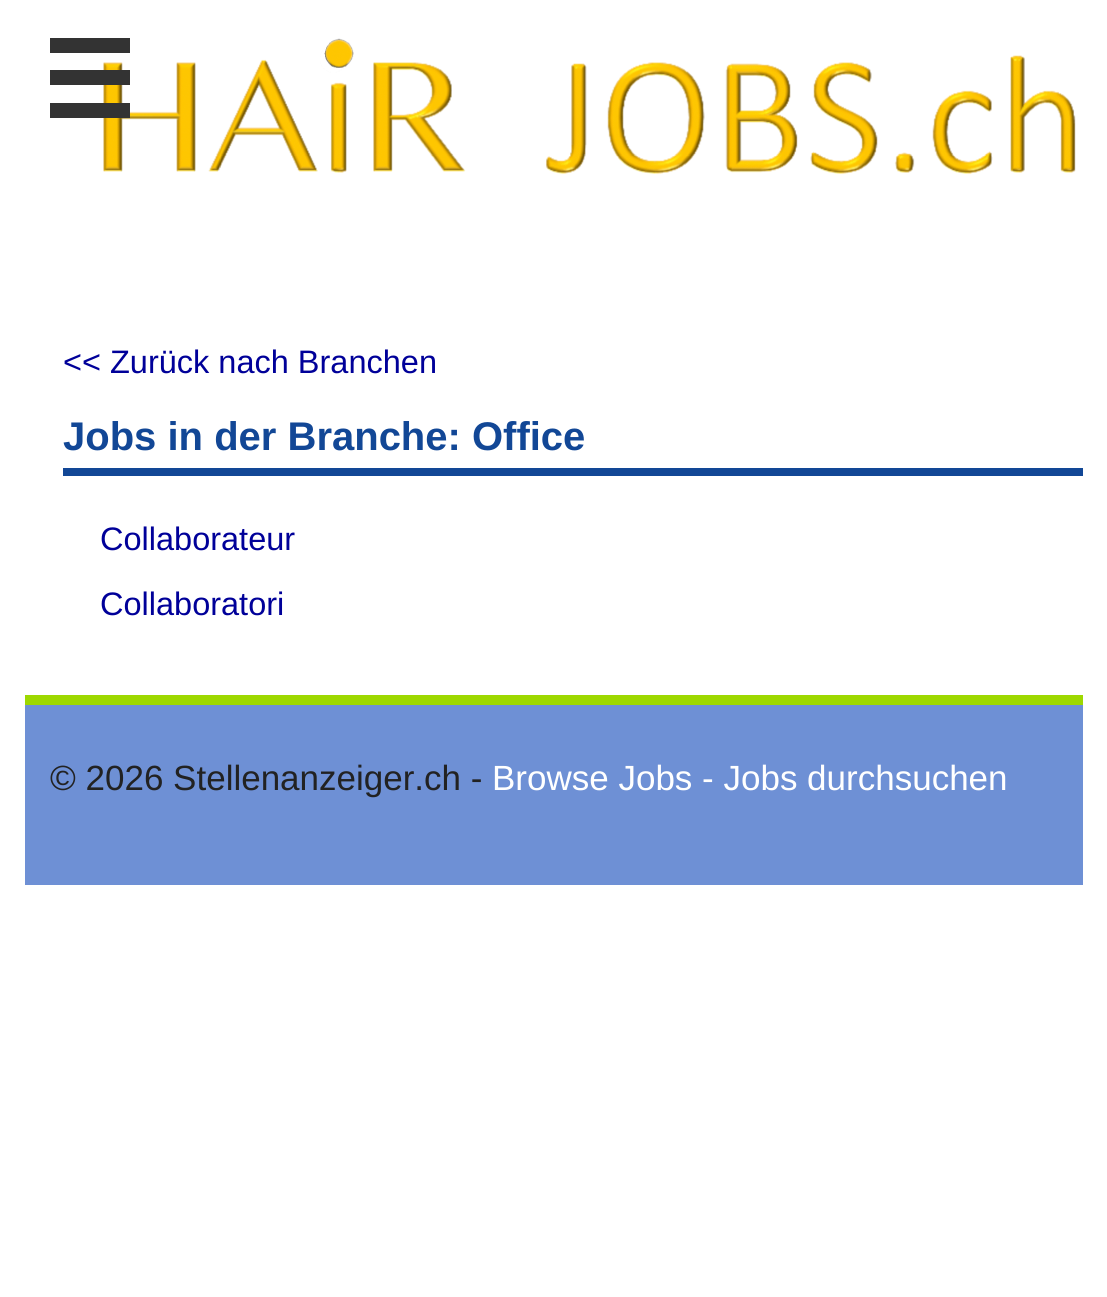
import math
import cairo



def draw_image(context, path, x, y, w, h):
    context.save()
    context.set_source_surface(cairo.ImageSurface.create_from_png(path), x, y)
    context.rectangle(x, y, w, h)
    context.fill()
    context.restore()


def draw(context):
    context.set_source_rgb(1, 1, 1)
    context.paint()
    draw_image(context, "images/1.png", 103, 38, 973, 137)
    context.set_source_rgb(51 / 255, 51 / 255, 51 / 255)
    context.rectangle(50, 103, 80, 15)
    context.fill()
    context.rectangle(50, 70, 80, 15)
    context.fill()
    context.rectangle(50, 38, 80, 15)
    context.fill()
    context.set_source_rgb(18 / 255, 71 / 255, 150 / 255)
    context.rectangle(63, 468, 1020, 8)
    context.fill()
    context.set_source_rgb(110 / 255, 144 / 255, 213 / 255)
    context.rectangle(25, 705, 1058, 180)
    context.fill()
    context.set_source_rgb(157 / 255, 216 / 255, 0)
    context.rectangle(25, 695, 1058, 10)
    context.fill()
    context.select_font_face("Liberation Sans")
    context.set_font_size(32.5)
    context.set_source_rgb(0, 0, 153 / 255)
    context.move_to(63, 373)
    context.show_text("<< Zurück nach Branchen")
    context.select_font_face("Liberation Sans", cairo.FontSlant.NORMAL, cairo.FontWeight.BOLD)
    context.set_font_size(40)
    context.set_source_rgb(18 / 255, 71 / 255, 150 / 255)
    context.move_to(63, 450)
    context.show_text("Jobs in der Branche: Office")
    context.select_font_face("Liberation Sans")
    context.set_font_size(32.5)
    context.set_source_rgb(0, 0, 153 / 255)
    context.move_to(100, 550)
    context.show_text("Collaborateur")
    context.move_to(100, 615)
    context.show_text("Collaboratori")
    context.set_font_size(35)
    context.set_source_rgb(34 / 255, 34 / 255, 34 / 255)
    context.move_to(50, 790)
    context.show_text("© 2026 Stellenanzeiger.ch -")
    context.set_source_rgb(1, 1, 1)
    context.move_to(492, 790)
    context.show_text("Browse Jobs - Jobs durchsuchen")


surface = cairo.ImageSurface(cairo.Format.RGB24, 1107, 1297)
context = cairo.Context(surface)
options = cairo.FontOptions()
options.set_hint_metrics(cairo.HintMetrics.OFF)
options.set_hint_style(cairo.HintStyle.NONE)
context.set_font_options(options)
context.set_miter_limit(4)
draw(context)
surface.write_to_png("out.png")
